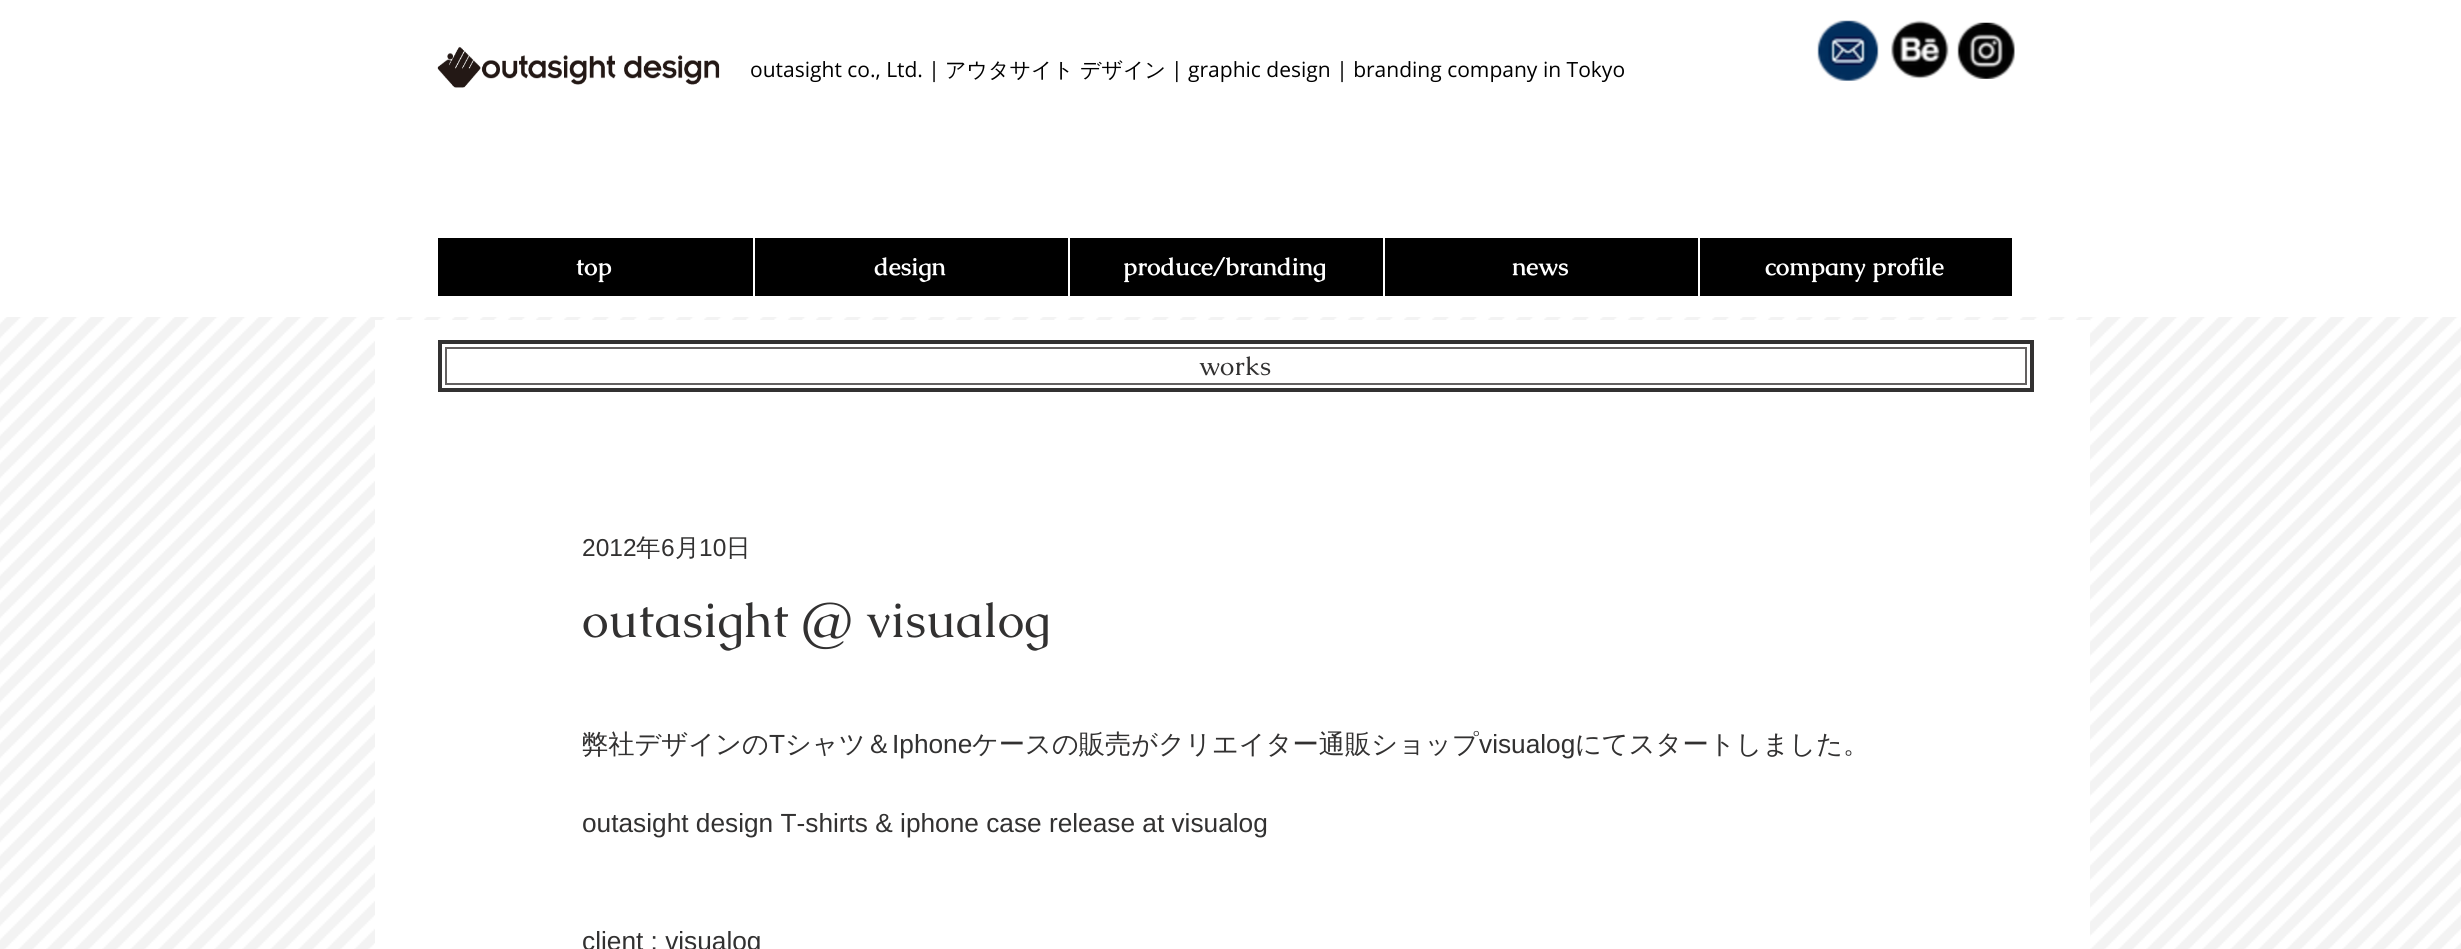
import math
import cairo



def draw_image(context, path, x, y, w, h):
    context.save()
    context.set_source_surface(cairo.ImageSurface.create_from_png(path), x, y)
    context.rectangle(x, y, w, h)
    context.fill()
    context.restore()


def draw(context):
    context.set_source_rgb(1, 1, 1)
    context.paint()
    draw_image(context, "images/1.png", 437, 46, 283, 42)
    draw_image(context, "images/2.png", 1817, 20, 62, 61)
    draw_image(context, "images/3.png", 1891, 20, 58, 59)
    draw_image(context, "images/4.png", 1957, 22, 58, 57)
    context.set_source_rgb(0, 0, 0)
    context.rectangle(438, 238, 1574, 58)
    context.fill()
    context.set_source_rgb(1, 1, 1)
    context.rectangle(753, 238, 2, 58)
    context.fill()
    context.rectangle(1068, 238, 2, 58)
    context.fill()
    context.rectangle(1383, 238, 2, 58)
    context.fill()
    context.rectangle(1698, 238, 2, 58)
    context.fill()
    draw_image(context, "images/5.png", 0, 317, 2461, 632)
    context.rectangle(375, 320, 1715, 629)
    context.fill()
    context.rectangle(440, 342, 1592, 48)
    context.set_source_rgb(50 / 255, 49 / 255, 49 / 255)
    context.set_line_width(4)
    context.stroke()
    context.rectangle(446, 348, 1580, 36)
    context.set_source_rgb(100 / 255, 97 / 255, 97 / 255)
    context.set_line_width(2)
    context.stroke()
    context.select_font_face("Open Sans")
    context.set_font_size(21)
    context.set_source_rgb(0, 0, 0)
    context.move_to(750, 77)
    context.show_text("outasight co., Ltd. |")
    context.select_font_face("WenQuanYi Zen Hei Medium")
    context.move_to(945, 77)
    context.show_text("アウタサイト")
    context.move_to(1080, 77)
    context.show_text("デザイン")
    context.select_font_face("Open Sans")
    context.move_to(1171, 77)
    context.show_text("| graphic design | branding company in Tokyo")
    context.select_font_face("Caudex", cairo.FontSlant.NORMAL, cairo.FontWeight.BOLD)
    context.set_font_size(24.5)
    context.set_source_rgb(1, 1, 1)
    context.move_to(576, 275)
    context.show_text("top")
    context.move_to(874, 275)
    context.show_text("design")
    context.move_to(1123, 275)
    context.show_text("produce/branding")
    context.move_to(1512, 275)
    context.show_text("news")
    context.move_to(1765, 275)
    context.show_text("company profile")
    context.select_font_face("Caudex")
    context.set_font_size(26.25)
    context.set_source_rgb(50 / 255, 49 / 255, 49 / 255)
    context.move_to(1199, 375)
    context.show_text("works")
    context.select_font_face("Liberation Sans")
    context.set_font_size(24.5)
    context.move_to(582, 556)
    context.show_text("2012")
    context.select_font_face("WenQuanYi Zen Hei Medium")
    context.move_to(636, 556)
    context.show_text("年")
    context.select_font_face("Liberation Sans")
    context.move_to(661, 556)
    context.show_text("6")
    context.select_font_face("WenQuanYi Zen Hei Medium")
    context.move_to(675, 556)
    context.show_text("月")
    context.select_font_face("Liberation Sans")
    context.move_to(699, 556)
    context.show_text("10")
    context.select_font_face("WenQuanYi Zen Hei Medium")
    context.move_to(726, 556)
    context.show_text("日")
    context.select_font_face("Caudex")
    context.set_font_size(49)
    context.move_to(582, 637)
    context.show_text("outasight @ visualog")
    context.select_font_face("WenQuanYi Zen Hei Medium")
    context.set_font_size(26.25)
    context.move_to(582, 753)
    context.show_text("弊社デザインの")
    context.select_font_face("Liberation Sans")
    context.move_to(769, 753)
    context.show_text("T")
    context.select_font_face("WenQuanYi Zen Hei Medium")
    context.move_to(785, 753)
    context.show_text("シャツ＆")
    context.select_font_face("Liberation Sans")
    context.move_to(892, 753)
    context.show_text("Iphone")
    context.select_font_face("WenQuanYi Zen Hei Medium")
    context.move_to(972, 753)
    context.show_text("ケースの販売がクリエイター通販ショップ")
    context.select_font_face("Liberation Sans")
    context.move_to(1479, 753)
    context.show_text("visualog")
    context.select_font_face("WenQuanYi Zen Hei Medium")
    context.move_to(1575, 753)
    context.show_text("にてスタートしました。")
    context.select_font_face("Liberation Sans")
    context.move_to(582, 832)
    context.show_text("outasight design T-shirts & iphone case release at visualog")
    context.move_to(582, 950)
    context.show_text("client : visualog")


surface = cairo.ImageSurface(cairo.Format.RGB24, 2461, 949)
context = cairo.Context(surface)
options = cairo.FontOptions()
options.set_hint_metrics(cairo.HintMetrics.OFF)
options.set_hint_style(cairo.HintStyle.NONE)
context.set_font_options(options)
context.set_miter_limit(4)
draw(context)
surface.write_to_png("out.png")
